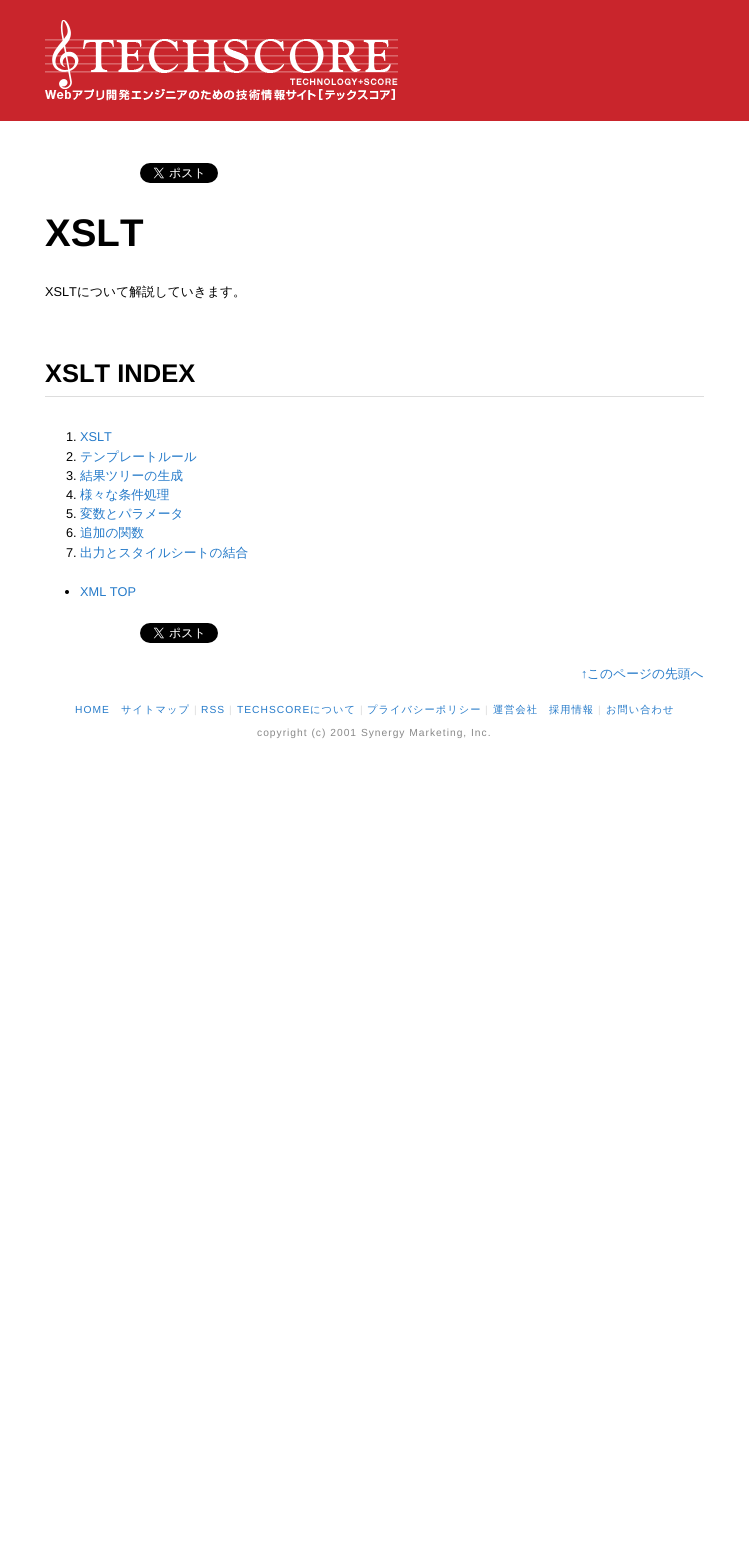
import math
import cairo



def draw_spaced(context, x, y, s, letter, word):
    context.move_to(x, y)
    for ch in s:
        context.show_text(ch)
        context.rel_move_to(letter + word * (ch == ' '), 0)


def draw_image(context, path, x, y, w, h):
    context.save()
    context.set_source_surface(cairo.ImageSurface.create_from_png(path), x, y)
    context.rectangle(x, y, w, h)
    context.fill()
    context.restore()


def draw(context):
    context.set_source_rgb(1, 1, 1)
    context.paint()
    context.set_source_rgb(201 / 255, 37 / 255, 44 / 255)
    context.rectangle(0, 0, 749, 121)
    context.fill()
    draw_image(context, "images/1.png", 45, 20, 353, 69)
    draw_image(context, "images/2.png", 45, 89, 350, 12)
    draw_image(context, "images/3.png", 140, 163, 78, 20)
    context.set_source_rgb(221 / 255, 221 / 255, 221 / 255)
    context.rectangle(45, 396, 659, 1)
    context.fill()
    context.set_source_rgb(0, 0, 0)
    context.arc(67, 592, 2, 0, 2 * math.pi)
    context.fill()
    draw_image(context, "images/3.png", 140, 623, 78, 20)
    context.select_font_face("Liberation Sans", cairo.FontSlant.NORMAL, cairo.FontWeight.BOLD)
    context.set_font_size(38.5)
    context.move_to(45, 246)
    context.show_text("XSLT")
    context.select_font_face("Liberation Sans")
    context.set_font_size(12.75)
    context.move_to(45, 296)
    context.show_text("XSLT")
    context.select_font_face("WenQuanYi Zen Hei Medium")
    context.move_to(77, 296)
    context.show_text("について解説していきます。")
    context.select_font_face("Liberation Sans", cairo.FontSlant.NORMAL, cairo.FontWeight.BOLD)
    context.set_font_size(25.5)
    context.move_to(45, 382)
    context.show_text("XSLT INDEX")
    context.select_font_face("Liberation Sans")
    context.set_font_size(12.75)
    context.move_to(66, 441)
    context.show_text("1.")
    context.set_source_rgb(37 / 255, 122 / 255, 201 / 255)
    context.move_to(80, 441)
    context.show_text("XSLT")
    context.set_source_rgb(0, 0, 0)
    context.move_to(66, 461)
    context.show_text("2.")
    context.select_font_face("WenQuanYi Zen Hei Medium")
    context.set_source_rgb(37 / 255, 122 / 255, 201 / 255)
    context.move_to(80, 461)
    context.show_text("テンプレートルール")
    context.select_font_face("Liberation Sans")
    context.set_source_rgb(0, 0, 0)
    context.move_to(66, 480)
    context.show_text("3.")
    context.select_font_face("WenQuanYi Zen Hei Medium")
    context.set_source_rgb(37 / 255, 122 / 255, 201 / 255)
    context.move_to(80, 480)
    context.show_text("結果ツリーの生成")
    context.select_font_face("Liberation Sans")
    context.set_source_rgb(0, 0, 0)
    context.move_to(66, 499)
    context.show_text("4.")
    context.select_font_face("WenQuanYi Zen Hei Medium")
    context.set_source_rgb(37 / 255, 122 / 255, 201 / 255)
    context.move_to(80, 499)
    context.show_text("様々な条件処理")
    context.select_font_face("Liberation Sans")
    context.set_source_rgb(0, 0, 0)
    context.move_to(66, 518)
    context.show_text("5.")
    context.select_font_face("WenQuanYi Zen Hei Medium")
    context.set_source_rgb(37 / 255, 122 / 255, 201 / 255)
    context.move_to(80, 518)
    context.show_text("変数とパラメータ")
    context.select_font_face("Liberation Sans")
    context.set_source_rgb(0, 0, 0)
    context.move_to(66, 537)
    context.show_text("6.")
    context.select_font_face("WenQuanYi Zen Hei Medium")
    context.set_source_rgb(37 / 255, 122 / 255, 201 / 255)
    context.move_to(80, 537)
    context.show_text("追加の関数")
    context.select_font_face("Liberation Sans")
    context.set_source_rgb(0, 0, 0)
    context.move_to(66, 557)
    context.show_text("7.")
    context.select_font_face("WenQuanYi Zen Hei Medium")
    context.set_source_rgb(37 / 255, 122 / 255, 201 / 255)
    context.move_to(80, 557)
    context.show_text("出力とスタイルシートの結合")
    context.select_font_face("Liberation Sans")
    context.move_to(80, 596)
    context.show_text("XML TOP")
    context.move_to(581, 678)
    context.show_text("↑")
    context.select_font_face("WenQuanYi Zen Hei Medium")
    context.move_to(587, 678)
    context.show_text("このページの先頭へ")
    context.select_font_face("Liberation Sans")
    context.set_font_size(10.25)
    draw_spaced(context, 75, 713, "HOME", 1, 0)
    context.select_font_face("WenQuanYi Zen Hei Medium")
    draw_spaced(context, 121, 713, "サイトマップ", 1, 0)
    context.select_font_face("Liberation Sans")
    context.set_source_rgb(221 / 255, 221 / 255, 221 / 255)
    draw_spaced(context, 194, 713, "|", 1, 0)
    context.set_source_rgb(37 / 255, 122 / 255, 201 / 255)
    draw_spaced(context, 201, 713, "RSS", 1, 0)
    context.set_source_rgb(221 / 255, 221 / 255, 221 / 255)
    draw_spaced(context, 229, 713, "|", 1, 0)
    context.set_source_rgb(37 / 255, 122 / 255, 201 / 255)
    draw_spaced(context, 237, 713, "TECHSCORE", 1, 0)
    context.select_font_face("WenQuanYi Zen Hei Medium")
    draw_spaced(context, 310, 713, "について", 1, 0)
    context.select_font_face("Liberation Sans")
    context.set_source_rgb(221 / 255, 221 / 255, 221 / 255)
    draw_spaced(context, 360, 713, "|", 1, 0)
    context.select_font_face("WenQuanYi Zen Hei Medium")
    context.set_source_rgb(37 / 255, 122 / 255, 201 / 255)
    draw_spaced(context, 367, 713, "プライバシーポリシー", 1, 0)
    context.select_font_face("Liberation Sans")
    context.set_source_rgb(221 / 255, 221 / 255, 221 / 255)
    draw_spaced(context, 485, 713, "|", 1, 0)
    context.select_font_face("WenQuanYi Zen Hei Medium")
    context.set_source_rgb(37 / 255, 122 / 255, 201 / 255)
    draw_spaced(context, 493, 713, "運営会社", 1, 0)
    draw_spaced(context, 549, 713, "採用情報", 1, 0)
    context.select_font_face("Liberation Sans")
    context.set_source_rgb(221 / 255, 221 / 255, 221 / 255)
    draw_spaced(context, 598, 713, "|", 1, 0)
    context.select_font_face("WenQuanYi Zen Hei Medium")
    context.set_source_rgb(37 / 255, 122 / 255, 201 / 255)
    draw_spaced(context, 606, 713, "お問い合わせ", 1, 0)
    context.select_font_face("Liberation Sans")
    context.set_source_rgb(136 / 255, 136 / 255, 136 / 255)
    draw_spaced(context, 257, 736, "copyright (c) 2001 Synergy Marketing, Inc.", 1, 0)


surface = cairo.ImageSurface(cairo.Format.RGB24, 749, 1562)
context = cairo.Context(surface)
options = cairo.FontOptions()
options.set_hint_metrics(cairo.HintMetrics.OFF)
options.set_hint_style(cairo.HintStyle.NONE)
context.set_font_options(options)
context.set_miter_limit(4)
draw(context)
surface.write_to_png("out.png")
